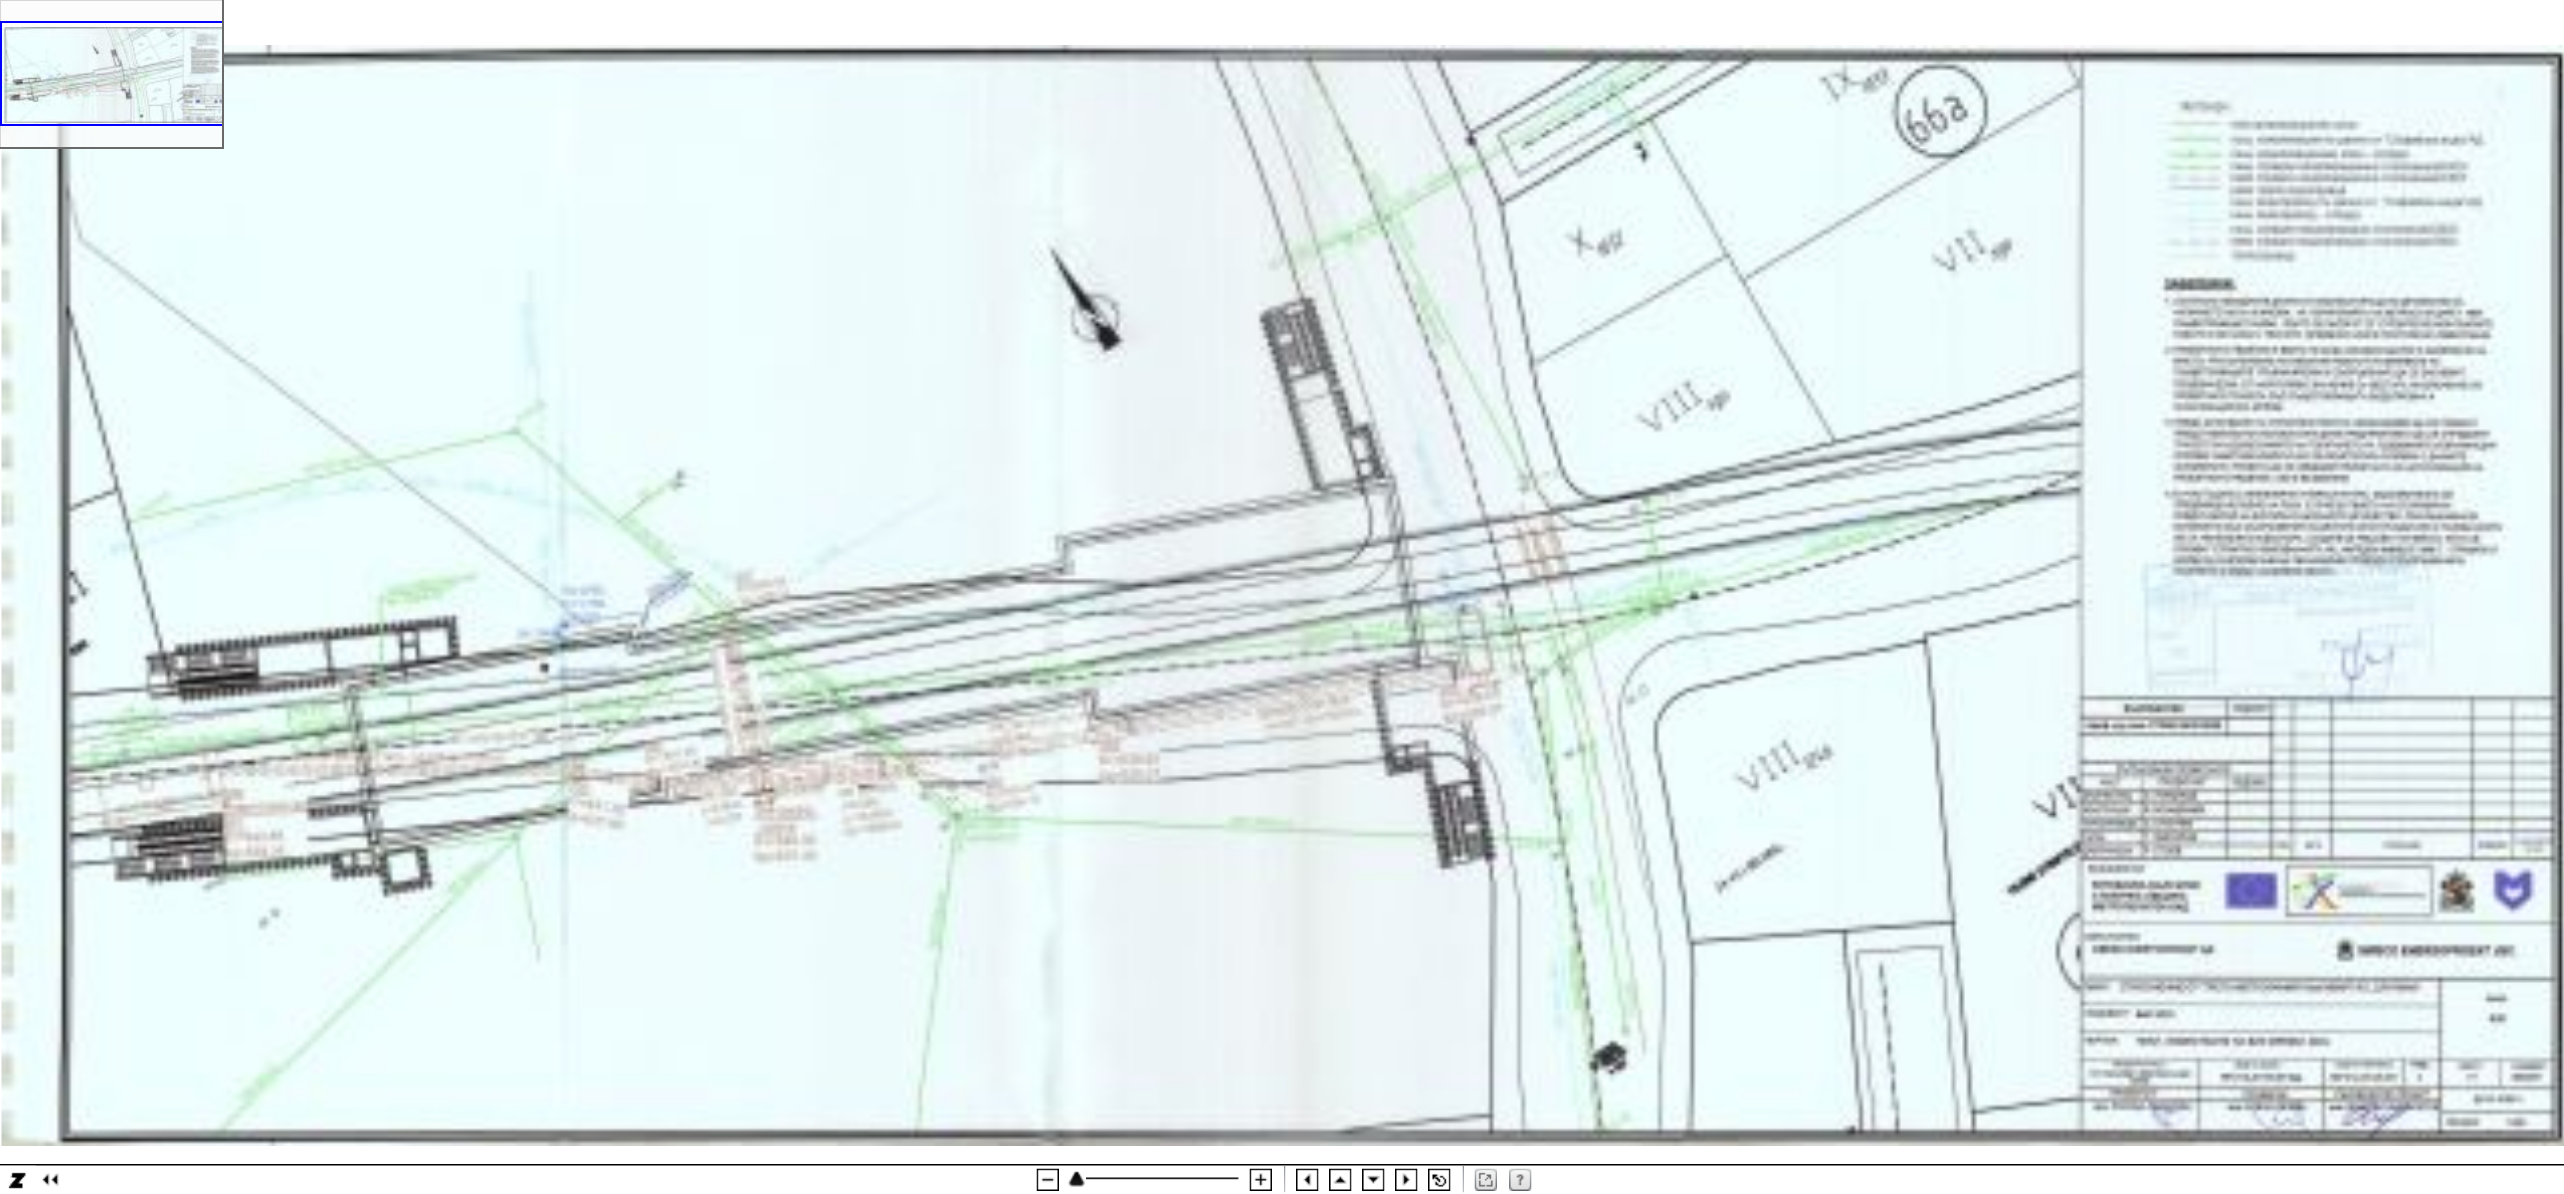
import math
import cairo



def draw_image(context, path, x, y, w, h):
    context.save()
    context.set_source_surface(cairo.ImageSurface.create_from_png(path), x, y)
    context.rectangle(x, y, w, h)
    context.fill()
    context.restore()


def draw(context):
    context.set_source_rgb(1, 1, 1)
    context.paint()
    draw_image(context, "images/2.png", 1, 45, 2563, 1101)
    context.rectangle(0, 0, 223, 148)
    context.set_source_rgb(105 / 255, 105 / 255, 105 / 255)
    context.stroke()
    context.set_source_rgba(251 / 255, 250 / 255, 250 / 255, 0.75)
    context.rectangle(0, 0, 222, 147)
    context.fill()
    draw_image(context, "images/1.png", 2, 27, 220, 96)
    context.save()
    context.rectangle(0, 0, 222, 147)
    context.clip()
    context.rectangle(1, 22, 223, 103)
    context.set_source_rgb(0, 0, 1)
    context.stroke()
    context.restore()
    draw_image(context, "images/3.png", 0, 1164, 2564, 2)
    draw_image(context, "images/4.png", 0, 1165, 36, 24)
    draw_image(context, "images/5.png", 41, 1173, 18, 14)
    draw_image(context, "images/6.png", 1036, 1168, 23, 23)
    draw_image(context, "images/7.png", 1067, 1171, 19, 16)
    draw_image(context, "images/8.png", 1086, 1177, 153, 3)
    draw_image(context, "images/9.png", 1249, 1168, 23, 23)
    draw_image(context, "images/10.png", 1284, 1165, 2, 28)
    draw_image(context, "images/11.png", 1296, 1168, 23, 23)
    draw_image(context, "images/12.png", 1329, 1168, 23, 23)
    draw_image(context, "images/13.png", 1362, 1168, 23, 23)
    draw_image(context, "images/14.png", 1395, 1168, 23, 23)
    draw_image(context, "images/15.png", 1428, 1168, 23, 23)
    draw_image(context, "images/16.png", 1462, 1165, 2, 28)
    draw_image(context, "images/17.png", 1474, 1168, 23, 23)
    draw_image(context, "images/18.png", 1509, 1168, 23, 23)


surface = cairo.ImageSurface(cairo.Format.RGB24, 2564, 1194)
context = cairo.Context(surface)
options = cairo.FontOptions()
options.set_hint_metrics(cairo.HintMetrics.OFF)
options.set_hint_style(cairo.HintStyle.NONE)
context.set_font_options(options)
context.set_miter_limit(4)
draw(context)
surface.write_to_png("out.png")
